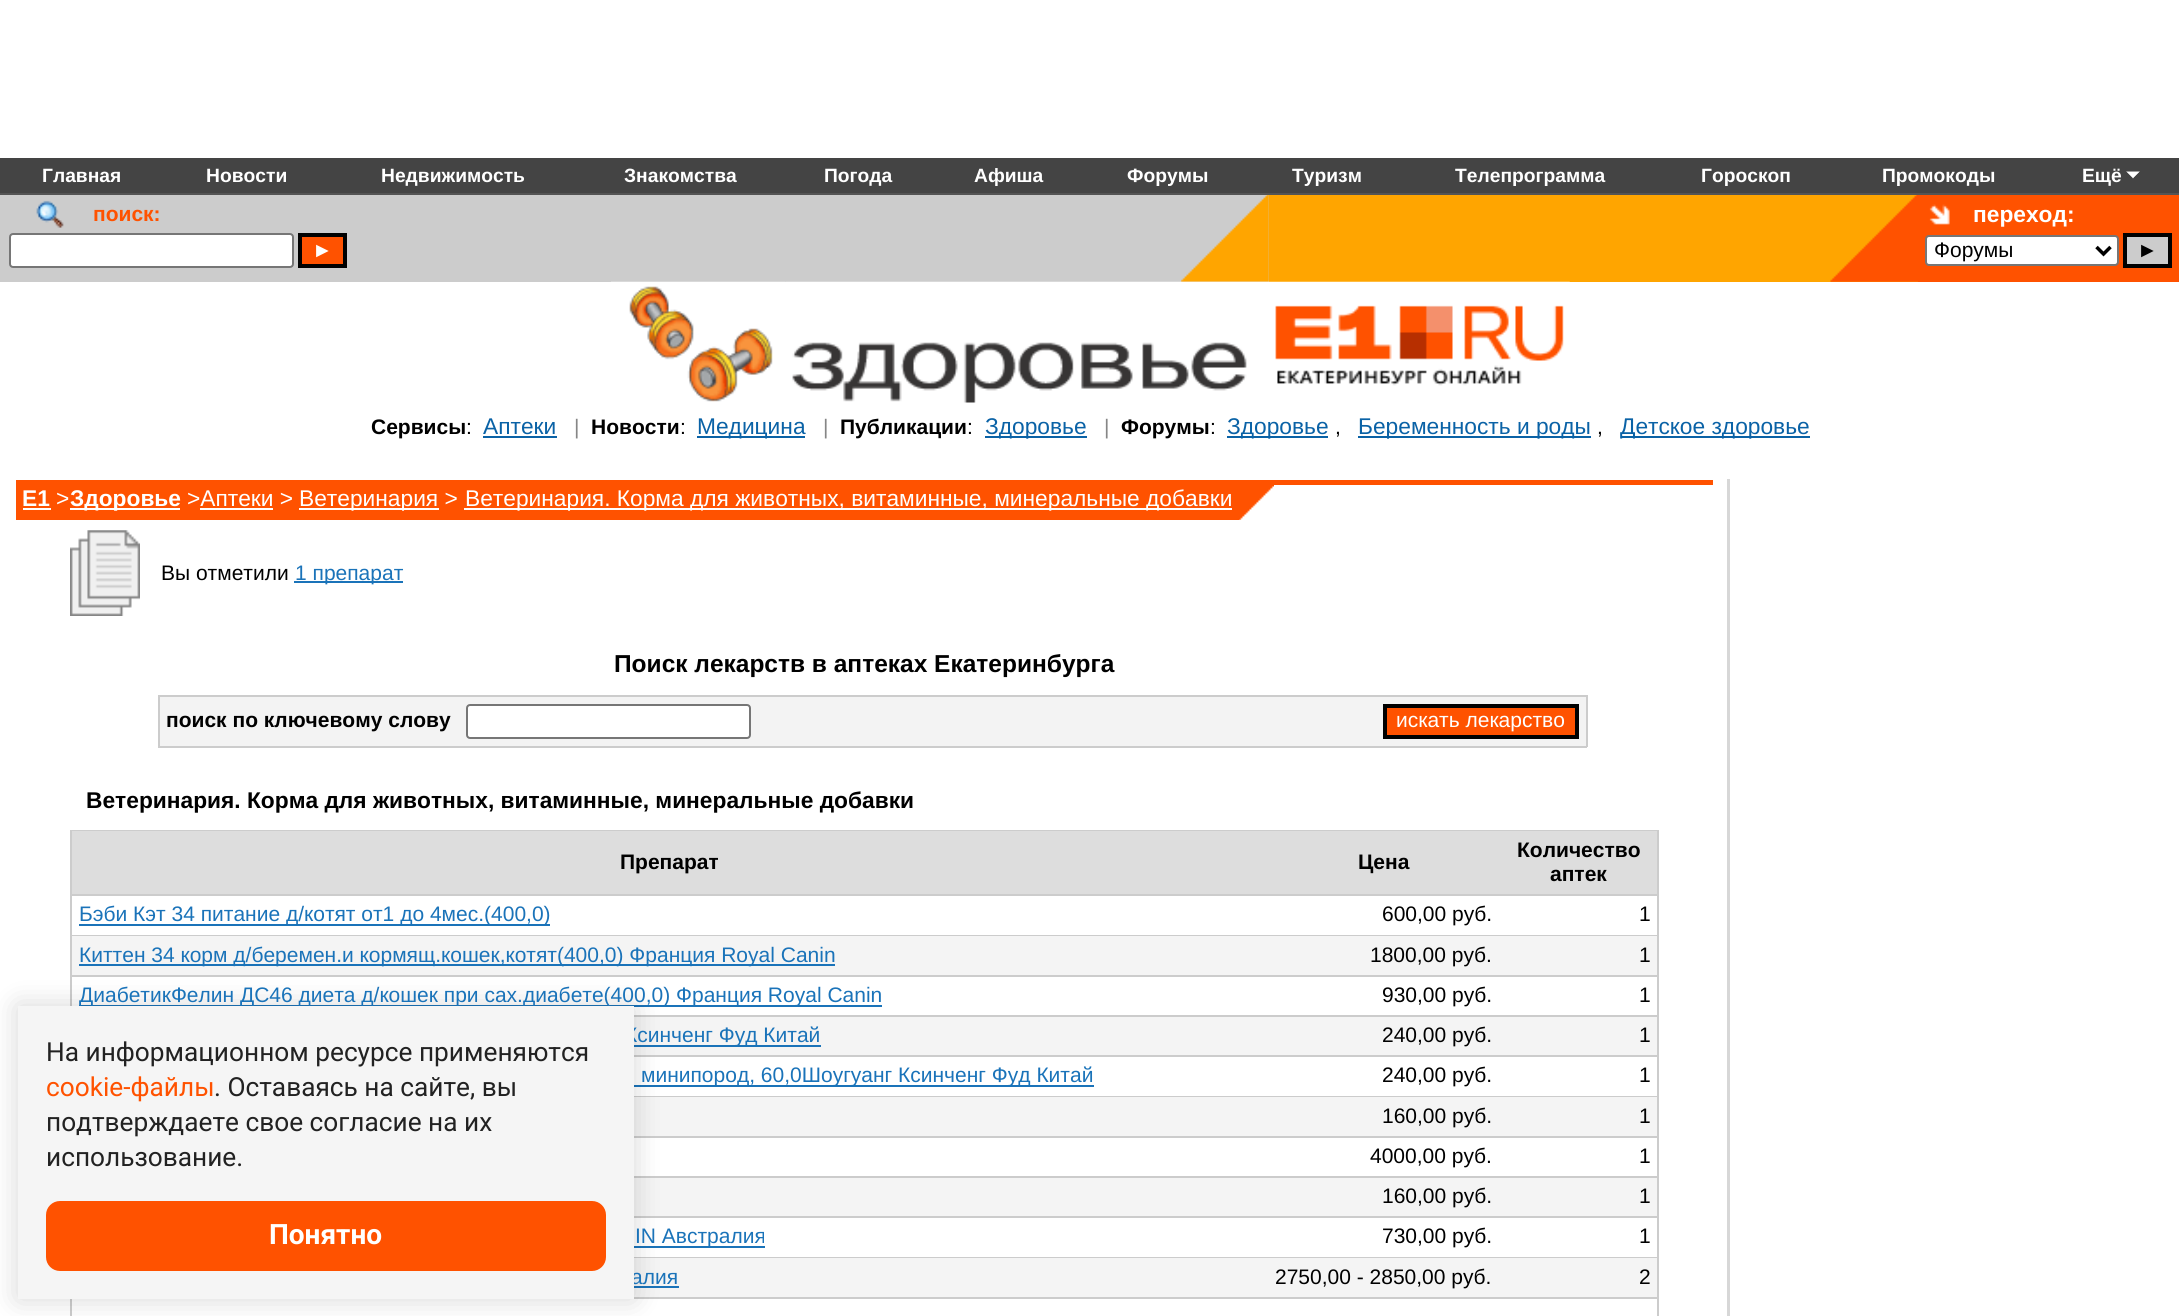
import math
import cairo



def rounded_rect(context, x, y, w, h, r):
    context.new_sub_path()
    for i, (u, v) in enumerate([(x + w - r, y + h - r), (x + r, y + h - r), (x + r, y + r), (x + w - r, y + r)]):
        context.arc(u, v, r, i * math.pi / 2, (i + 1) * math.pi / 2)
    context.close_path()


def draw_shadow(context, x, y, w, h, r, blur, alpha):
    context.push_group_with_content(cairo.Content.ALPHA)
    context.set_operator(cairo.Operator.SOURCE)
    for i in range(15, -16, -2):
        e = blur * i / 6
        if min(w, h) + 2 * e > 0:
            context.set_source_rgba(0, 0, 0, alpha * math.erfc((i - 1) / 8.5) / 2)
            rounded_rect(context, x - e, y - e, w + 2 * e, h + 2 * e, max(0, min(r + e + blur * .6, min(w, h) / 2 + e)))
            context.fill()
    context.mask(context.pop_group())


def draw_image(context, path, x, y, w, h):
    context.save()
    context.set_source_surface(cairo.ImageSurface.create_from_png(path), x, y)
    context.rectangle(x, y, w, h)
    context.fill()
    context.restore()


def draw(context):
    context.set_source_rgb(1, 1, 1)
    context.paint()
    context.set_source_rgb(68 / 255, 68 / 255, 68 / 255)
    context.rectangle(0, 158, 2179, 35)
    context.fill()
    context.set_source_rgb(204 / 255, 204 / 255, 204 / 255)
    context.rectangle(0, 194, 7, 88)
    context.fill()
    context.set_source_rgb(1, 82 / 255, 0)
    context.rectangle(1918, 194, 5, 88)
    context.fill()
    context.rectangle(2174, 194, 5, 88)
    context.fill()
    context.set_source_rgb(84 / 255, 84 / 255, 84 / 255)
    context.rectangle(0, 193, 2179, 2)
    context.fill()
    context.set_source_rgb(1, 1, 1)
    context.new_path()
    context.move_to(2126, 171.5)
    context.line_to(2140, 171.5)
    context.line_to(2133, 178.5)
    context.close_path()
    context.fill()
    context.set_source_rgb(67 / 255, 67 / 255, 67 / 255)
    context.new_path()
    context.move_to(2140, 171.5)
    context.line_to(2140, 178.5)
    context.line_to(2133, 178.5)
    context.close_path()
    context.move_to(2126, 178.5)
    context.line_to(2126, 171.5)
    context.line_to(2133, 178.5)
    context.close_path()
    context.fill()
    context.set_source_rgb(204 / 255, 204 / 255, 204 / 255)
    context.rectangle(7, 195, 1262, 87)
    context.fill()
    draw_image(context, "images/1.png", 1181, 195, 88, 87)
    context.set_source_rgb(1, 165 / 255, 0)
    context.rectangle(1269, 195, 649, 87)
    context.fill()
    draw_image(context, "images/2.png", 36, 200, 28, 28)
    context.set_source_rgb(1, 1, 1)
    rounded_rect(context, 10, 234, 283, 33, 3)
    context.fill_preserve()
    context.set_source_rgb(118 / 255, 118 / 255, 118 / 255)
    context.stroke()
    context.set_source_rgb(1, 82 / 255, 0)
    context.rectangle(300, 235, 45, 31)
    context.fill_preserve()
    context.set_source_rgb(0, 0, 0)
    context.set_line_width(4)
    context.stroke()
    draw_image(context, "images/3.png", 1830, 195, 88, 87)
    context.set_source_rgb(1, 82 / 255, 0)
    context.rectangle(1923, 195, 251, 87)
    context.fill()
    draw_image(context, "images/4.png", 1929, 204, 21, 21)
    context.set_source_rgb(1, 1, 1)
    rounded_rect(context, 1926, 236, 192, 29, 3)
    context.fill_preserve()
    context.set_source_rgb(118 / 255, 118 / 255, 118 / 255)
    context.set_line_width(2)
    context.stroke()
    context.new_path()
    context.move_to(2096.5, 247)
    context.line_to(2103.5, 254)
    context.line_to(2110.5, 247)
    context.set_source_rgb(0, 0, 0)
    context.set_line_width(3.5)
    context.stroke()
    context.set_source_rgb(204 / 255, 204 / 255, 204 / 255)
    context.rectangle(2125, 235, 45, 31)
    context.fill_preserve()
    context.set_source_rgb(0, 0, 0)
    context.set_line_width(4)
    context.stroke()
    draw_image(context, "images/5.png", 611, 281, 175, 121)
    draw_image(context, "images/6.png", 786, 281, 483, 122)
    draw_image(context, "images/7.png", 1268, 281, 302, 105)
    context.set_source_rgb(10 / 255, 98 / 255, 166 / 255)
    context.rectangle(483, 436, 74, 2)
    context.fill()
    context.rectangle(697, 436, 108, 2)
    context.fill()
    context.rectangle(985, 436, 102, 2)
    context.fill()
    context.rectangle(1227, 436, 101, 2)
    context.fill()
    context.rectangle(1358, 436, 233, 2)
    context.fill()
    context.rectangle(1621, 436, 189, 2)
    context.fill()
    context.set_source_rgb(1, 82 / 255, 0)
    context.rectangle(16, 480, 1697, 5)
    context.fill()
    context.rectangle(16, 485, 1223, 35)
    context.fill()
    context.set_source_rgb(1, 1, 1)
    context.rectangle(23, 508, 28, 2)
    context.fill()
    context.rectangle(70, 508, 110, 2)
    context.fill()
    context.rectangle(200, 508, 73, 2)
    context.fill()
    context.rectangle(299, 508, 140, 2)
    context.fill()
    context.rectangle(464, 508, 768, 2)
    context.fill()
    draw_image(context, "images/8.png", 1239, 485, 35, 35)
    draw_image(context, "images/9.png", 70, 530, 70, 86)
    context.set_source_rgb(26 / 255, 115 / 255, 185 / 255)
    context.rectangle(294, 581, 109, 2)
    context.fill()
    context.set_source_rgb(243 / 255, 243 / 255, 243 / 255)
    context.rectangle(160, 697, 1426, 49)
    context.fill()
    context.set_source_rgb(204 / 255, 204 / 255, 204 / 255)
    context.rectangle(158, 695, 1429, 2)
    context.fill()
    context.rectangle(1586, 695, 2, 52)
    context.fill()
    context.rectangle(158, 746, 1429, 2)
    context.fill()
    context.rectangle(158, 695, 2, 52)
    context.fill()
    context.set_source_rgb(1, 1, 1)
    rounded_rect(context, 467, 705, 283, 33, 3)
    context.fill_preserve()
    context.set_source_rgb(118 / 255, 118 / 255, 118 / 255)
    context.set_line_width(2)
    context.stroke()
    context.set_source_rgb(1, 82 / 255, 0)
    context.rectangle(1385, 706, 192, 31)
    context.fill_preserve()
    context.set_source_rgb(0, 0, 0)
    context.set_line_width(4)
    context.stroke()
    context.set_source_rgb(204 / 255, 204 / 255, 204 / 255)
    context.rectangle(70, 830, 1589, 486)
    context.fill()
    context.set_source_rgb(221 / 255, 221 / 255, 221 / 255)
    context.rectangle(72, 831, 1585, 63)
    context.fill()
    context.set_source_rgb(1, 1, 1)
    context.rectangle(72, 896, 1585, 39)
    context.fill()
    context.set_source_rgb(26 / 255, 115 / 255, 185 / 255)
    context.rectangle(79, 924, 471, 2)
    context.fill()
    context.set_source_rgb(244 / 255, 244 / 255, 244 / 255)
    context.rectangle(72, 936, 1585, 39)
    context.fill()
    context.set_source_rgb(26 / 255, 115 / 255, 185 / 255)
    context.rectangle(79, 964, 756, 2)
    context.fill()
    context.set_source_rgb(1, 1, 1)
    context.rectangle(72, 977, 1585, 38)
    context.fill()
    context.set_source_rgb(26 / 255, 115 / 255, 185 / 255)
    context.rectangle(79, 1005, 803, 2)
    context.fill()
    context.set_source_rgb(244 / 255, 244 / 255, 244 / 255)
    context.rectangle(634, 1017, 1023, 38)
    context.fill()
    context.set_source_rgb(26 / 255, 115 / 255, 185 / 255)
    context.rectangle(634, 1045, 187, 2)
    context.fill()
    context.set_source_rgb(1, 1, 1)
    context.rectangle(634, 1057, 1023, 39)
    context.fill()
    context.set_source_rgb(26 / 255, 115 / 255, 185 / 255)
    context.rectangle(634, 1085, 460, 2)
    context.fill()
    context.set_source_rgb(244 / 255, 244 / 255, 244 / 255)
    context.rectangle(634, 1097, 1023, 39)
    context.fill()
    context.set_source_rgb(1, 1, 1)
    context.rectangle(634, 1138, 1023, 38)
    context.fill()
    context.set_source_rgb(244 / 255, 244 / 255, 244 / 255)
    context.rectangle(634, 1178, 1023, 38)
    context.fill()
    context.set_source_rgb(1, 1, 1)
    context.rectangle(634, 1218, 1023, 39)
    context.fill()
    context.set_source_rgb(26 / 255, 115 / 255, 185 / 255)
    context.rectangle(634, 1246, 131, 2)
    context.fill()
    context.set_source_rgb(244 / 255, 244 / 255, 244 / 255)
    context.rectangle(634, 1258, 1023, 39)
    context.fill()
    context.set_source_rgb(26 / 255, 115 / 255, 185 / 255)
    context.rectangle(634, 1286, 45, 2)
    context.fill()
    context.set_source_rgb(1, 1, 1)
    context.rectangle(72, 1299, 1585, 17)
    context.fill()
    context.set_source_rgb(215 / 255, 215 / 255, 215 / 255)
    context.rectangle(1727, 479, 3, 837)
    context.fill()
    context.set_source_rgb(0, 0, 0)
    draw_shadow(context, 18, 1006, 616, 293, 0, 14, 0.16)
    context.select_font_face("Liberation Sans", cairo.FontSlant.NORMAL, cairo.FontWeight.BOLD)
    context.set_font_size(19.25)
    context.set_source_rgb(1, 1, 1)
    context.move_to(42, 182)
    context.show_text("Главная")
    context.move_to(206, 182)
    context.show_text("Новости")
    context.move_to(381, 182)
    context.show_text("Недвижимость")
    context.move_to(624, 182)
    context.show_text("Знакомства")
    context.move_to(824, 182)
    context.show_text("Погода")
    context.move_to(974, 182)
    context.show_text("Афиша")
    context.move_to(1127, 182)
    context.show_text("Форумы")
    context.move_to(1292, 182)
    context.show_text("Туризм")
    context.move_to(1455, 182)
    context.show_text("Телепрограмма")
    context.move_to(1701, 182)
    context.show_text("Гороскоп")
    context.move_to(1882, 182)
    context.show_text("Промокоды")
    context.move_to(2082, 182)
    context.show_text("Ещё")
    context.set_font_size(21)
    context.set_source_rgb(1, 82 / 255, 0)
    context.move_to(93, 221)
    context.show_text("поиск:")
    context.select_font_face("Liberation Sans")
    context.set_source_rgb(1, 1, 1)
    context.move_to(312, 257)
    context.show_text("►")
    context.select_font_face("Liberation Sans", cairo.FontSlant.NORMAL, cairo.FontWeight.BOLD)
    context.set_font_size(22.75)
    context.move_to(1973, 222)
    context.show_text("переход:")
    context.select_font_face("Liberation Sans")
    context.set_font_size(21)
    context.set_source_rgb(0, 0, 0)
    context.move_to(1934, 257)
    context.show_text("Форумы")
    context.move_to(2137, 257)
    context.show_text("►")
    context.select_font_face("Liberation Sans", cairo.FontSlant.NORMAL, cairo.FontWeight.BOLD)
    context.move_to(371, 434)
    context.show_text("Сервисы")
    context.select_font_face("Liberation Sans")
    context.move_to(466, 434)
    context.show_text(":")
    context.set_font_size(22.75)
    context.set_source_rgb(10 / 255, 98 / 255, 166 / 255)
    context.move_to(483, 434)
    context.show_text("Аптеки")
    context.set_font_size(21)
    context.set_source_rgb(134 / 255, 134 / 255, 134 / 255)
    context.move_to(574, 434)
    context.show_text("|")
    context.select_font_face("Liberation Sans", cairo.FontSlant.NORMAL, cairo.FontWeight.BOLD)
    context.set_source_rgb(0, 0, 0)
    context.move_to(591, 434)
    context.show_text("Новости")
    context.select_font_face("Liberation Sans")
    context.move_to(680, 434)
    context.show_text(":")
    context.set_font_size(22.75)
    context.set_source_rgb(10 / 255, 98 / 255, 166 / 255)
    context.move_to(697, 434)
    context.show_text("Медицина")
    context.set_font_size(21)
    context.set_source_rgb(134 / 255, 134 / 255, 134 / 255)
    context.move_to(823, 434)
    context.show_text("|")
    context.select_font_face("Liberation Sans", cairo.FontSlant.NORMAL, cairo.FontWeight.BOLD)
    context.set_source_rgb(0, 0, 0)
    context.move_to(840, 434)
    context.show_text("Публикации")
    context.select_font_face("Liberation Sans")
    context.move_to(967, 434)
    context.show_text(":")
    context.set_font_size(22.75)
    context.set_source_rgb(10 / 255, 98 / 255, 166 / 255)
    context.move_to(985, 434)
    context.show_text("Здоровье")
    context.set_font_size(21)
    context.set_source_rgb(134 / 255, 134 / 255, 134 / 255)
    context.move_to(1104, 434)
    context.show_text("|")
    context.select_font_face("Liberation Sans", cairo.FontSlant.NORMAL, cairo.FontWeight.BOLD)
    context.set_source_rgb(0, 0, 0)
    context.move_to(1121, 434)
    context.show_text("Форумы")
    context.select_font_face("Liberation Sans")
    context.move_to(1210, 434)
    context.show_text(":")
    context.set_font_size(22.75)
    context.set_source_rgb(10 / 255, 98 / 255, 166 / 255)
    context.move_to(1227, 434)
    context.show_text("Здоровье")
    context.set_font_size(21)
    context.set_source_rgb(0, 0, 0)
    context.move_to(1335, 434)
    context.show_text(",")
    context.set_font_size(22.75)
    context.set_source_rgb(10 / 255, 98 / 255, 166 / 255)
    context.move_to(1358, 434)
    context.show_text("Беременность и роды")
    context.set_font_size(21)
    context.set_source_rgb(0, 0, 0)
    context.move_to(1597, 434)
    context.show_text(",")
    context.set_font_size(22.75)
    context.set_source_rgb(10 / 255, 98 / 255, 166 / 255)
    context.move_to(1620, 434)
    context.show_text("Детское здоровье")
    context.select_font_face("Liberation Sans", cairo.FontSlant.NORMAL, cairo.FontWeight.BOLD)
    context.set_source_rgb(1, 1, 1)
    context.move_to(22, 506)
    context.show_text("E1")
    context.select_font_face("Liberation Sans")
    context.move_to(56, 506)
    context.show_text(">")
    context.select_font_face("Liberation Sans", cairo.FontSlant.NORMAL, cairo.FontWeight.BOLD)
    context.move_to(70, 506)
    context.show_text("Здоровье")
    context.select_font_face("Liberation Sans")
    context.move_to(187, 506)
    context.show_text(">Аптеки >")
    context.move_to(299, 506)
    context.show_text("Ветеринария >")
    context.move_to(465, 506)
    context.show_text("Ветеринария. Корма для животных, витаминные, минеральные добавки")
    context.set_font_size(21)
    context.set_source_rgb(0, 0, 0)
    context.move_to(161, 580)
    context.show_text("Вы отметили")
    context.set_source_rgb(26 / 255, 115 / 255, 185 / 255)
    context.move_to(295, 580)
    context.show_text("1 препарат")
    context.select_font_face("Liberation Sans", cairo.FontSlant.NORMAL, cairo.FontWeight.BOLD)
    context.set_font_size(24.5)
    context.set_source_rgb(0, 0, 0)
    context.move_to(614, 672)
    context.show_text("Поиск лекарств в аптеках Екатеринбурга")
    context.set_font_size(21)
    context.move_to(166, 727)
    context.show_text("поиск по ключевому слову")
    context.select_font_face("Liberation Sans")
    context.set_source_rgb(1, 1, 1)
    context.move_to(1396, 727)
    context.show_text("искать лекарство")
    context.select_font_face("Liberation Sans", cairo.FontSlant.NORMAL, cairo.FontWeight.BOLD)
    context.set_font_size(22.75)
    context.set_source_rgb(0, 0, 0)
    context.move_to(86, 808)
    context.show_text("Ветеринария. Корма для животных, витаминные, минеральные добавки")
    context.set_font_size(21)
    context.move_to(620, 869)
    context.show_text("Препарат")
    context.move_to(1358, 869)
    context.show_text("Цена")
    context.move_to(1517, 857)
    context.show_text("Количество")
    context.move_to(1550, 881)
    context.show_text("аптек")
    context.select_font_face("Liberation Sans")
    context.set_source_rgb(26 / 255, 115 / 255, 185 / 255)
    context.move_to(79, 921)
    context.show_text("Бэби Кэт 34 питание д/котят от1 до 4мес.(400,0)")
    context.set_source_rgb(0, 0, 0)
    context.move_to(1382, 921)
    context.show_text("600,00 руб.")
    context.move_to(1639, 921)
    context.show_text("1")
    context.set_source_rgb(26 / 255, 115 / 255, 185 / 255)
    context.move_to(79, 962)
    context.show_text("Киттен 34 корм д/беремен.и кормящ.кошек,котят(400,0) Франция Royal Canin")
    context.set_source_rgb(0, 0, 0)
    context.move_to(1370, 962)
    context.show_text("1800,00 руб.")
    context.move_to(1639, 962)
    context.show_text("1")
    context.set_source_rgb(26 / 255, 115 / 255, 185 / 255)
    context.move_to(79, 1002)
    context.show_text("ДиабетикФелин ДС46 диета д/кошек при сах.диабете(400,0) Франция Royal Canin")
    context.set_source_rgb(0, 0, 0)
    context.move_to(1382, 1002)
    context.show_text("930,00 руб.")
    context.move_to(1639, 1002)
    context.show_text("1")
    context.set_source_rgb(26 / 255, 115 / 255, 185 / 255)
    context.move_to(625, 1042)
    context.show_text("Ксинченг Фуд Китай")
    context.set_source_rgb(0, 0, 0)
    context.move_to(1382, 1042)
    context.show_text("240,00 руб.")
    context.move_to(1639, 1042)
    context.show_text("1")
    context.set_source_rgb(26 / 255, 115 / 255, 185 / 255)
    context.move_to(641, 1082)
    context.show_text("минипород, 60,0Шоугуанг Ксинченг Фуд Китай")
    context.set_source_rgb(0, 0, 0)
    context.move_to(1382, 1082)
    context.show_text("240,00 руб.")
    context.move_to(1639, 1082)
    context.show_text("1")
    context.move_to(1382, 1123)
    context.show_text("160,00 руб.")
    context.move_to(1639, 1123)
    context.show_text("1")
    context.move_to(1370, 1163)
    context.show_text("4000,00 руб.")
    context.move_to(1639, 1163)
    context.show_text("1")
    context.move_to(1382, 1203)
    context.show_text("160,00 руб.")
    context.move_to(1639, 1203)
    context.show_text("1")
    context.set_source_rgb(26 / 255, 115 / 255, 185 / 255)
    context.move_to(635, 1243)
    context.show_text("IN Австралия")
    context.set_source_rgb(0, 0, 0)
    context.move_to(1382, 1243)
    context.show_text("730,00 руб.")
    context.move_to(1639, 1243)
    context.show_text("1")
    context.set_source_rgb(26 / 255, 115 / 255, 185 / 255)
    context.move_to(631, 1284)
    context.show_text("алия")
    context.set_source_rgb(0, 0, 0)
    context.move_to(1275, 1284)
    context.show_text("2750,00 - 2850,00 руб.")
    context.move_to(1639, 1284)
    context.show_text("2")
    context.set_source_rgb(245 / 255, 245 / 255, 245 / 255)
    context.rectangle(18, 1006, 616, 293)
    context.fill()
    context.select_font_face("Roboto")
    context.set_font_size(26.25)
    context.set_source_rgb(34 / 255, 34 / 255, 34 / 255)
    context.move_to(46, 1061)
    context.show_text("На информационном ресурсе применяются")
    context.set_source_rgb(1, 82 / 255, 0)
    context.move_to(46, 1096)
    context.show_text("cookie-файлы")
    context.set_source_rgb(34 / 255, 34 / 255, 34 / 255)
    context.move_to(214, 1096)
    context.show_text(". Оставаясь на сайте, вы")
    context.move_to(46, 1131)
    context.show_text("подтверждаете свое согласие на их")
    context.move_to(46, 1166)
    context.show_text("использование.")
    context.set_source_rgb(1, 82 / 255, 0)
    rounded_rect(context, 46, 1201, 560, 70, 14)
    context.fill()
    context.select_font_face("Roboto", cairo.FontSlant.NORMAL, cairo.FontWeight.BOLD)
    context.set_font_size(28)
    context.set_source_rgb(1, 1, 1)
    context.move_to(269, 1244)
    context.show_text("Понятно")


surface = cairo.ImageSurface(cairo.Format.RGB24, 2179, 1316)
context = cairo.Context(surface)
options = cairo.FontOptions()
options.set_hint_metrics(cairo.HintMetrics.OFF)
options.set_hint_style(cairo.HintStyle.NONE)
context.set_font_options(options)
context.set_miter_limit(4)
draw(context)
surface.write_to_png("out.png")
